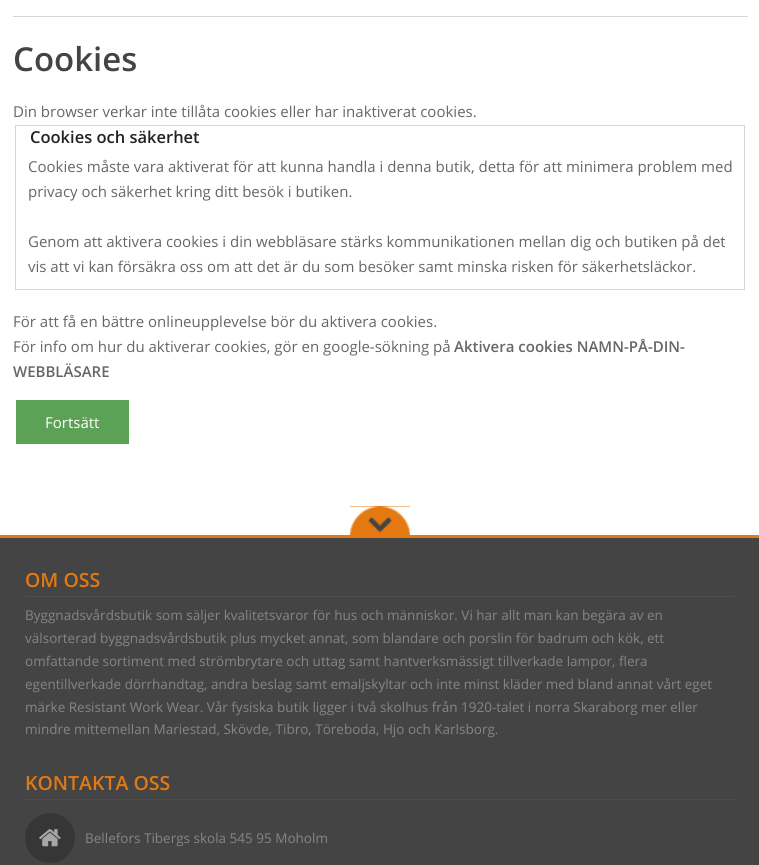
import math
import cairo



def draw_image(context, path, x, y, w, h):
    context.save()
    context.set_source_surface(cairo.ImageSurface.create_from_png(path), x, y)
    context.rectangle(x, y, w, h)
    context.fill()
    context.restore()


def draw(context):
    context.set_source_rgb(1, 1, 1)
    context.paint()
    context.set_source_rgb(214 / 255, 214 / 255, 214 / 255)
    context.rectangle(13, 16, 735, 1)
    context.fill()
    context.rectangle(15.5, 125.5, 729, 164)
    context.set_line_width(1)
    context.stroke()
    context.set_source_rgb(91 / 255, 162 / 255, 87 / 255)
    context.rectangle(16, 400, 113, 44)
    context.fill()
    context.set_source_rgb(228 / 255, 121 / 255, 17 / 255)
    context.rectangle(350, 506, 60, 29)
    context.fill()
    draw_image(context, "images/1.png", 350, 506, 60, 29)
    context.set_source_rgb(68 / 255, 68 / 255, 68 / 255)
    context.rectangle(0, 538, 759, 327)
    context.fill()
    context.set_source_rgb(228 / 255, 121 / 255, 17 / 255)
    context.rectangle(0, 535, 759, 3)
    context.fill()
    context.set_source_rgb(77 / 255, 77 / 255, 77 / 255)
    context.rectangle(25, 596, 710, 1)
    context.fill()
    context.rectangle(25, 799, 710, 1)
    context.fill()
    context.set_source_rgb(54 / 255, 54 / 255, 54 / 255)
    context.arc(50, 838, 25, 0, 2 * math.pi)
    context.fill()
    draw_image(context, "images/2.png", 39, 829, 22, 18)
    context.select_font_face("Open Sans SemiBold")
    context.set_font_size(33)
    context.set_source_rgb(68 / 255, 68 / 255, 68 / 255)
    context.move_to(13, 71)
    context.show_text("Cookies")
    context.select_font_face("Open Sans")
    context.set_font_size(15)
    context.set_source_rgb(102 / 255, 102 / 255, 102 / 255)
    context.move_to(13, 117)
    context.show_text("Din browser verkar inte tillåta cookies eller har inaktiverat cookies.")
    context.select_font_face("Open Sans SemiBold")
    context.set_font_size(16.5)
    context.set_source_rgb(34 / 255, 34 / 255, 34 / 255)
    context.move_to(30, 143)
    context.show_text("Cookies och säkerhet")
    context.select_font_face("Open Sans")
    context.set_font_size(15)
    context.set_source_rgb(102 / 255, 102 / 255, 102 / 255)
    context.move_to(28, 172)
    context.show_text("Cookies måste vara aktiverat för att kunna handla i denna butik, detta för att minimera problem med")
    context.move_to(28, 197)
    context.show_text("privacy och säkerhet kring ditt besök i butiken.")
    context.move_to(28, 247)
    context.show_text("Genom att aktivera cookies i din webbläsare stärks kommunikationen mellan dig och butiken på det")
    context.move_to(28, 272)
    context.show_text("vis att vi kan försäkra oss om att det är du som besöker samt minska risken för säkerhetsläckor.")
    context.move_to(13, 327)
    context.show_text("För att få en bättre onlineupplevelse bör du aktivera cookies.")
    context.move_to(13, 352)
    context.show_text("För info om hur du aktiverar cookies, gör en google-sökning på")
    context.select_font_face("Open Sans SemiBold")
    context.move_to(454, 352)
    context.show_text("Aktivera cookies NAMN-PÅ-DIN-")
    context.move_to(13, 377)
    context.show_text("WEBBLÄSARE")
    context.select_font_face("Open Sans")
    context.set_source_rgb(1, 1, 1)
    context.move_to(45, 428)
    context.show_text("Fortsätt")
    context.select_font_face("Open Sans SemiBold")
    context.set_font_size(19.5)
    context.set_source_rgb(228 / 255, 121 / 255, 17 / 255)
    context.move_to(25, 587)
    context.show_text("OM OSS")
    context.select_font_face("Open Sans")
    context.set_font_size(13.5)
    context.set_source_rgb(133 / 255, 133 / 255, 133 / 255)
    context.move_to(25, 620)
    context.show_text("Byggnadsvårdsbutik som säljer kvalitetsvaror för hus och människor. Vi har allt man kan begära av en")
    context.move_to(25, 643)
    context.show_text("välsorterad byggnadsvårdsbutik plus mycket annat, som blandare och porslin för badrum och kök, ett")
    context.move_to(25, 666)
    context.show_text("omfattande sortiment med strömbrytare och uttag samt hantverksmässigt tillverkade lampor, flera")
    context.move_to(25, 689)
    context.show_text("egentillverkade dörrhandtag, andra beslag samt emaljskyltar och inte minst kläder med bland annat vårt eget")
    context.move_to(25, 712)
    context.show_text("märke Resistant Work Wear. Vår fysiska butik ligger i två skolhus från 1920-talet i norra Skaraborg mer eller")
    context.move_to(25, 734)
    context.show_text("mindre mittemellan Mariestad, Skövde, Tibro, Töreboda, Hjo och Karlsborg.")
    context.select_font_face("Open Sans SemiBold")
    context.set_font_size(19.5)
    context.set_source_rgb(228 / 255, 121 / 255, 17 / 255)
    context.move_to(25, 790)
    context.show_text("KONTAKTA OSS")
    context.select_font_face("Open Sans")
    context.set_font_size(13.5)
    context.set_source_rgb(133 / 255, 133 / 255, 133 / 255)
    context.move_to(85, 843)
    context.show_text("Bellefors Tibergs skola 545 95 Moholm")


surface = cairo.ImageSurface(cairo.Format.RGB24, 759, 865)
context = cairo.Context(surface)
options = cairo.FontOptions()
options.set_hint_metrics(cairo.HintMetrics.OFF)
options.set_hint_style(cairo.HintStyle.NONE)
context.set_font_options(options)
context.set_miter_limit(4)
draw(context)
surface.write_to_png("out.png")
